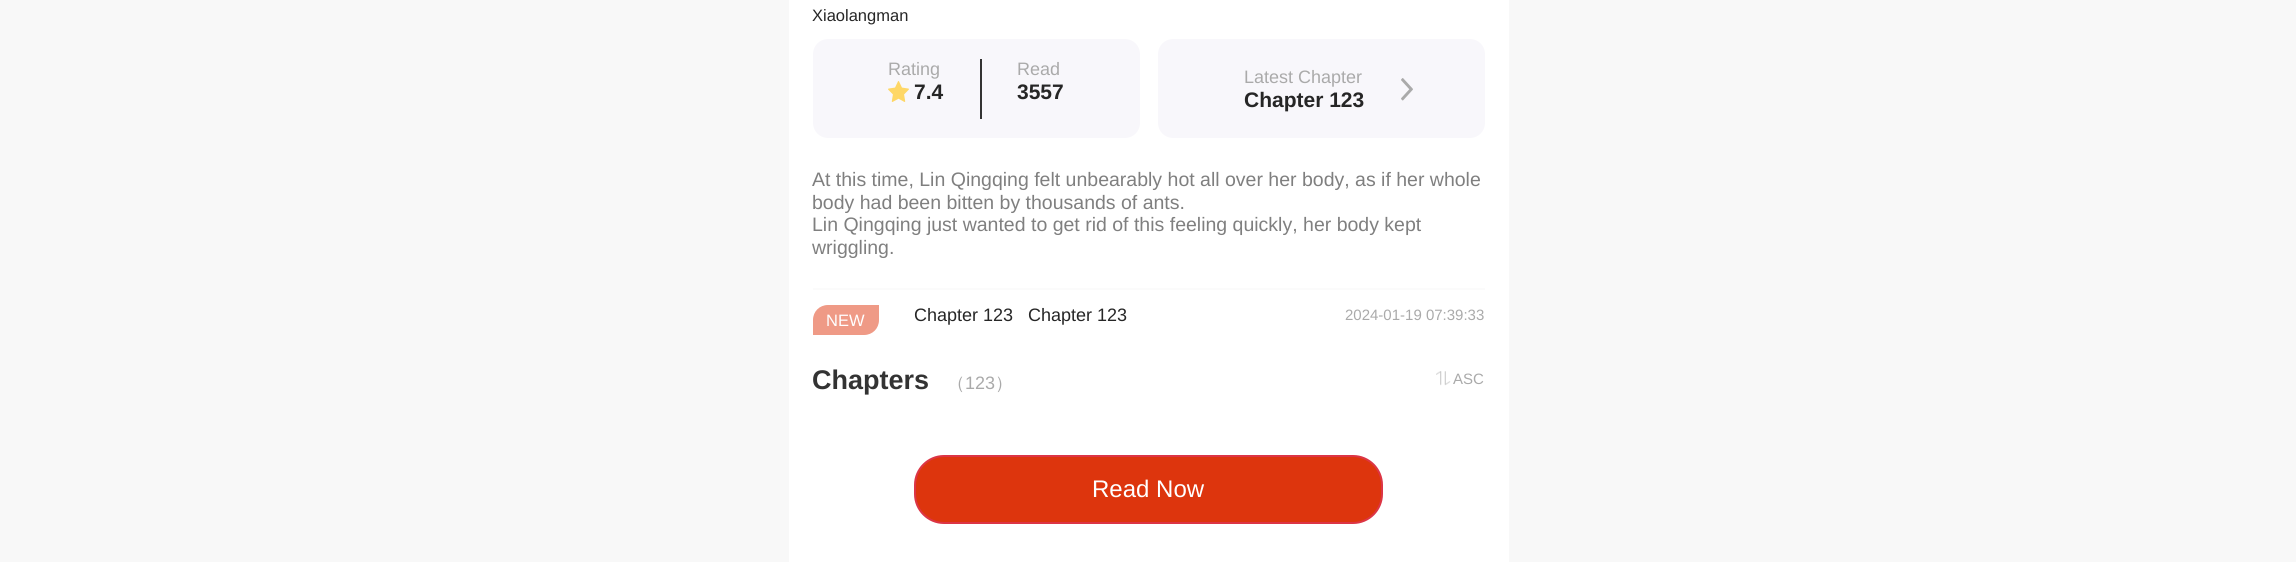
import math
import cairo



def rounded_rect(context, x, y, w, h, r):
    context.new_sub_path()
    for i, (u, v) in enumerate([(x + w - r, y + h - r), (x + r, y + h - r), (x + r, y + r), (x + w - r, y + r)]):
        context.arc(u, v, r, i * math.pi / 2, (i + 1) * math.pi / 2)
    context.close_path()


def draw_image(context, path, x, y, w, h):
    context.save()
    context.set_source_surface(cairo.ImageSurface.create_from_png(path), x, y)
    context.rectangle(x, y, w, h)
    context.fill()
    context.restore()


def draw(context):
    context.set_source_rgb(248 / 255, 248 / 255, 248 / 255)
    context.paint()
    context.set_source_rgb(1, 1, 1)
    context.rectangle(789, 0, 720, 562)
    context.fill()
    context.set_source_rgb(248 / 255, 247 / 255, 251 / 255)
    rounded_rect(context, 813, 39, 327, 99, 15)
    context.fill()
    draw_image(context, "images/1.png", 888, 81, 21, 21)
    context.set_source_rgb(51 / 255, 51 / 255, 51 / 255)
    context.rectangle(980, 59, 2, 60)
    context.fill()
    context.set_source_rgb(248 / 255, 247 / 255, 251 / 255)
    rounded_rect(context, 1158, 39, 327, 99, 15)
    context.fill()
    draw_image(context, "images/2.png", 1401, 78, 12, 23)
    context.set_source_rgb(251 / 255, 251 / 255, 251 / 255)
    context.rectangle(813, 288, 672, 2)
    context.fill()
    context.set_source_rgb(239 / 255, 154 / 255, 134 / 255)
    context.new_path()
    context.move_to(828, 305)
    context.line_to(879, 305)
    context.line_to(879, 320)
    context.curve_to(879, 328.5, 872.5, 335, 864, 335)
    context.line_to(813, 335)
    context.line_to(813, 320)
    context.curve_to(813, 311.5, 819.5, 305, 828, 305)
    context.close_path()
    context.fill()
    draw_image(context, "images/3.png", 1436, 371, 15, 15)
    context.set_source_rgb(221 / 255, 53 / 255, 13 / 255)
    rounded_rect(context, 915, 456, 467, 67, 29)
    context.fill_preserve()
    context.set_source_rgb(220 / 255, 53 / 255, 69 / 255)
    context.stroke()
    context.select_font_face("Liberation Sans")
    context.set_font_size(16.5)
    context.set_source_rgb(38 / 255, 38 / 255, 38 / 255)
    context.move_to(812, 21)
    context.show_text("Xiaolangman")
    context.set_font_size(18)
    context.set_source_rgb(170 / 255, 170 / 255, 170 / 255)
    context.move_to(888, 75)
    context.show_text("Rating")
    context.select_font_face("Liberation Sans", cairo.FontSlant.NORMAL, cairo.FontWeight.BOLD)
    context.set_font_size(21)
    context.set_source_rgb(38 / 255, 38 / 255, 38 / 255)
    context.move_to(914, 99)
    context.show_text("7.4")
    context.select_font_face("Liberation Sans")
    context.set_font_size(18)
    context.set_source_rgb(170 / 255, 170 / 255, 170 / 255)
    context.move_to(1017, 75)
    context.show_text("Read")
    context.select_font_face("Liberation Sans", cairo.FontSlant.NORMAL, cairo.FontWeight.BOLD)
    context.set_font_size(21)
    context.set_source_rgb(38 / 255, 38 / 255, 38 / 255)
    context.move_to(1017, 99)
    context.show_text("3557")
    context.select_font_face("Liberation Sans")
    context.set_font_size(18)
    context.set_source_rgb(170 / 255, 170 / 255, 170 / 255)
    context.move_to(1244, 83)
    context.show_text("Latest Chapter")
    context.select_font_face("Liberation Sans", cairo.FontSlant.NORMAL, cairo.FontWeight.BOLD)
    context.set_font_size(21)
    context.set_source_rgb(38 / 255, 38 / 255, 38 / 255)
    context.move_to(1244, 107)
    context.show_text("Chapter 123")
    context.select_font_face("Liberation Sans")
    context.set_font_size(19.5)
    context.set_source_rgb(127 / 255, 127 / 255, 127 / 255)
    context.move_to(812, 186)
    context.show_text("At this time, Lin Qingqing felt unbearably hot all over her body, as if her whole")
    context.move_to(812, 209)
    context.show_text("body had been bitten by thousands of ants.")
    context.move_to(812, 231)
    context.show_text("Lin Qingqing just wanted to get rid of this feeling quickly, her body kept")
    context.move_to(812, 254)
    context.show_text("wriggling.")
    context.set_font_size(16.5)
    context.set_source_rgb(1, 1, 1)
    context.move_to(826, 326)
    context.show_text("NEW")
    context.set_font_size(18)
    context.set_source_rgb(38 / 255, 38 / 255, 38 / 255)
    context.move_to(914, 321)
    context.show_text("Chapter 123")
    context.move_to(1028, 321)
    context.show_text("Chapter 123")
    context.set_font_size(15)
    context.set_source_rgb(170 / 255, 170 / 255, 170 / 255)
    context.move_to(1345, 320)
    context.show_text("2024-01-19 07:39:33")
    context.select_font_face("Liberation Sans", cairo.FontSlant.NORMAL, cairo.FontWeight.BOLD)
    context.set_font_size(27)
    context.set_source_rgb(51 / 255, 51 / 255, 51 / 255)
    context.move_to(812, 389)
    context.show_text("Chapters")
    context.select_font_face("WenQuanYi Zen Hei Medium")
    context.set_font_size(18)
    context.set_source_rgb(170 / 255, 170 / 255, 170 / 255)
    context.move_to(947, 389)
    context.show_text("（")
    context.select_font_face("Liberation Sans")
    context.move_to(965, 389)
    context.show_text("123")
    context.select_font_face("WenQuanYi Zen Hei Medium")
    context.move_to(995, 389)
    context.show_text("）")
    context.select_font_face("Liberation Sans")
    context.set_font_size(15)
    context.move_to(1453, 384)
    context.show_text("ASC")
    context.set_font_size(24)
    context.set_source_rgb(1, 1, 1)
    context.move_to(1092, 497)
    context.show_text("Read Now")


surface = cairo.ImageSurface(cairo.Format.RGB24, 2296, 562)
context = cairo.Context(surface)
options = cairo.FontOptions()
options.set_hint_metrics(cairo.HintMetrics.OFF)
options.set_hint_style(cairo.HintStyle.NONE)
context.set_font_options(options)
context.set_miter_limit(4)
draw(context)
surface.write_to_png("out.png")
